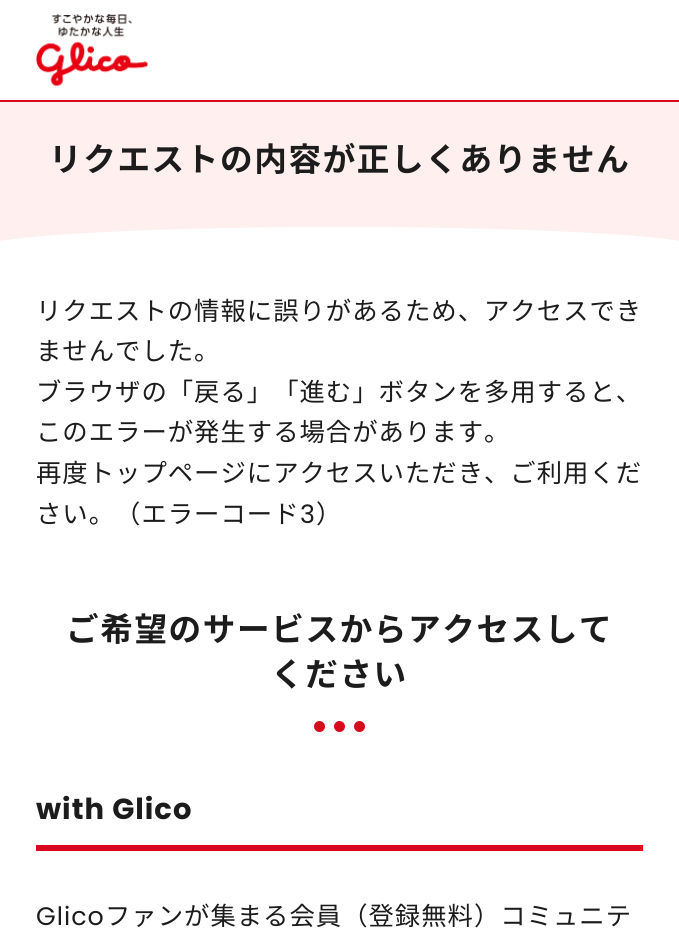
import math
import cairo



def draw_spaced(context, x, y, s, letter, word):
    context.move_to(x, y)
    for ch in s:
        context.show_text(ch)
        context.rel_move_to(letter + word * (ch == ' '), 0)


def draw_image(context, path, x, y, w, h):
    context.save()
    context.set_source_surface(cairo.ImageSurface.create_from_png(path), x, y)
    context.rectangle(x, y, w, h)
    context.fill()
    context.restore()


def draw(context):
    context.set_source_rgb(1, 1, 1)
    context.paint()
    context.set_source_rgb(215 / 255, 9 / 255, 27 / 255)
    context.rectangle(0, 100, 679, 2)
    context.fill()
    draw_image(context, "images/1.png", 36, 14, 112, 72)
    context.set_source_rgb(1, 239 / 255, 238 / 255)
    context.rectangle(0, 102, 679, 140)
    context.fill()
    context.set_source_rgb(1, 1, 1)
    context.new_path()
    context.move_to(340, 227)
    context.curve_to(536, 227, 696, 236, 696, 247)
    context.line_to(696, 264)
    context.line_to(-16, 264)
    context.line_to(-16, 247)
    context.curve_to(-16, 236, 143, 227, 340, 227)
    context.close_path()
    context.fill()
    context.set_source_rgb(215 / 255, 9 / 255, 27 / 255)
    context.arc(319.5, 726.5, 5.5, 0, 2 * math.pi)
    context.fill()
    context.arc(339.5, 726.5, 5.5, 0, 2 * math.pi)
    context.fill()
    context.arc(359.5, 726.5, 5.5, 0, 2 * math.pi)
    context.fill()
    context.rectangle(36, 845, 607, 6)
    context.fill()
    context.select_font_face("Noto Sans JP", cairo.FontSlant.NORMAL, cairo.FontWeight.BOLD)
    context.set_font_size(32.6)
    context.set_source_rgb(28 / 255, 28 / 255, 28 / 255)
    draw_spaced(context, 49, 171, "リクエストの内容が正しくありません", 1.6, 0)
    context.select_font_face("Noto Sans JP")
    context.set_font_size(25.35)
    draw_spaced(context, 36, 320, "リクエストの情報に誤りがあるため、アクセスでき", 1, 0)
    draw_spaced(context, 36, 360, "ませんでした。", 1, 0)
    draw_spaced(context, 36, 401, "ブラウザの「戻る」「進む」ボタンを多用すると、", 1, 0)
    draw_spaced(context, 36, 441, "このエラーが発生する場合があります。", 1, 0)
    draw_spaced(context, 36, 482, "再度トップページにアクセスいただき、ご利用くだ", 1, 0)
    draw_spaced(context, 36, 523, "さい。（エラーコード", 1, 0)
    context.select_font_face("Poppins")
    draw_spaced(context, 300, 523, "3", 1, 0)
    context.select_font_face("Noto Sans JP")
    draw_spaced(context, 316, 523, "）", 1, 0)
    context.select_font_face("Noto Sans JP", cairo.FontSlant.NORMAL, cairo.FontWeight.BOLD)
    context.set_font_size(32.6)
    draw_spaced(context, 66, 641, "ご希望のサービスからアクセスして", 1.6, 0)
    draw_spaced(context, 271, 686, "ください", 1.6, 0)
    context.select_font_face("Poppins", cairo.FontSlant.NORMAL, cairo.FontWeight.BOLD)
    context.set_font_size(29)
    draw_spaced(context, 36, 819, "with Glico", 1, 0)
    context.select_font_face("Poppins")
    context.set_font_size(25.35)
    draw_spaced(context, 36, 925, "Glico", 1, 0)
    context.select_font_face("Noto Sans JP")
    draw_spaced(context, 105, 925, "ファンが集まる会員（登録無料）コミュニテ", 1, 0)


surface = cairo.ImageSurface(cairo.Format.RGB24, 679, 937)
context = cairo.Context(surface)
options = cairo.FontOptions()
options.set_hint_metrics(cairo.HintMetrics.OFF)
options.set_hint_style(cairo.HintStyle.NONE)
context.set_font_options(options)
context.set_miter_limit(4)
draw(context)
surface.write_to_png("out.png")
